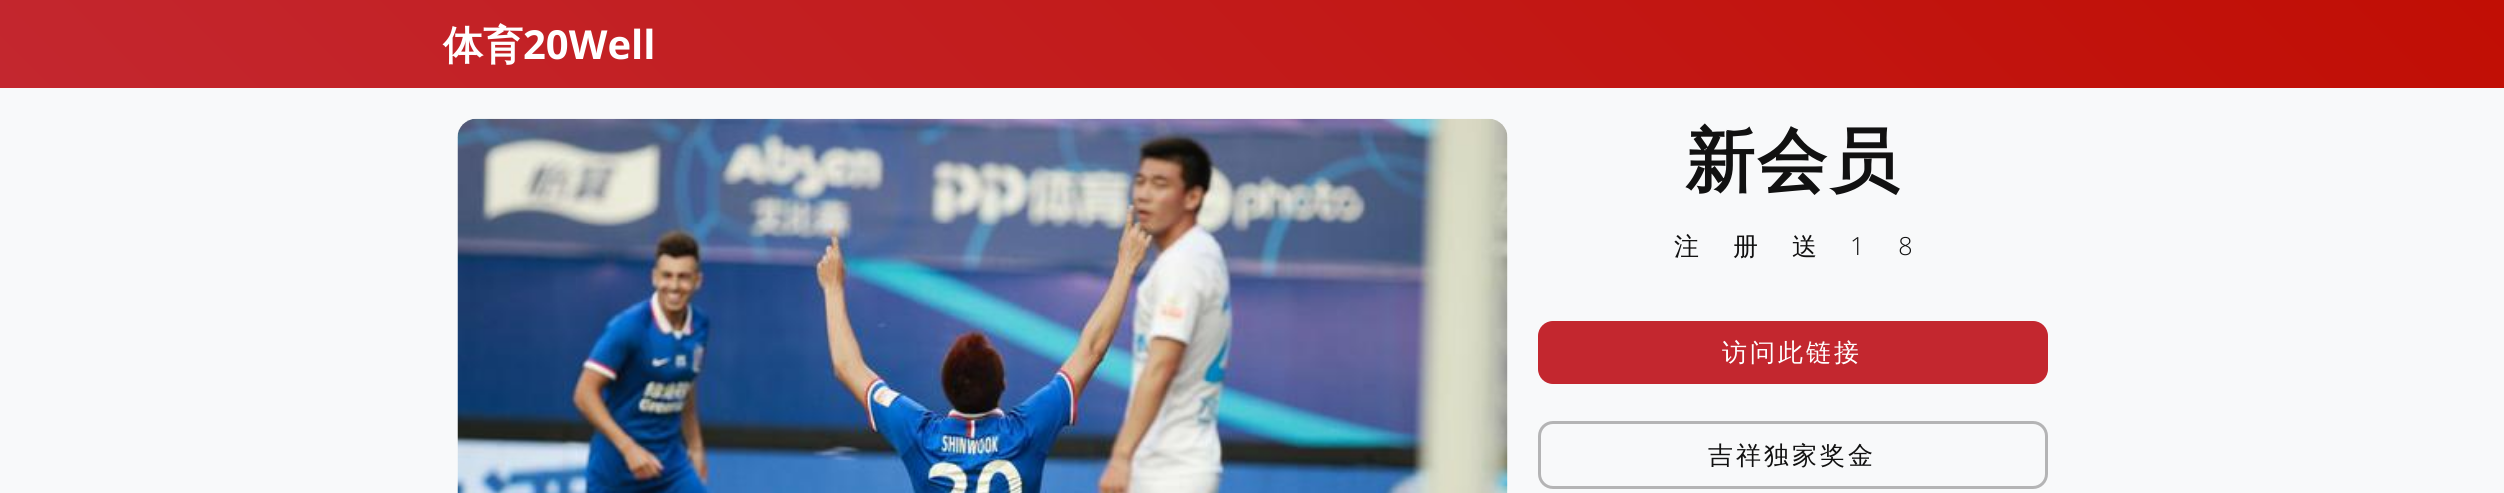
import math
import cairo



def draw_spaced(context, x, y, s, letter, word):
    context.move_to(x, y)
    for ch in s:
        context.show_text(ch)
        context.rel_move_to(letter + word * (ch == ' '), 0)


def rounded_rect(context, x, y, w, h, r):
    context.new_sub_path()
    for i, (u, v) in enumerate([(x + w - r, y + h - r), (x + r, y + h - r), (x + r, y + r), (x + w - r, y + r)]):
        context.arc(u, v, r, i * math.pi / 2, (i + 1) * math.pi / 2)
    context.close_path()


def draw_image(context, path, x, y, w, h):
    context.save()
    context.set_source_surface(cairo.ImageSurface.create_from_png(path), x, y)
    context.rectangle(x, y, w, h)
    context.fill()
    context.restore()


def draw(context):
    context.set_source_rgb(1, 1, 1)
    context.paint()
    gradient = cairo.LinearGradient(604, 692, 1901, -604)
    gradient.add_color_stop_rgba(0, 195 / 255, 39 / 255, 47 / 255, 1)
    gradient.add_color_stop_rgba(1, 193 / 255, 14 / 255, 4 / 255, 1)
    context.set_source(gradient)
    context.rectangle(0, 0, 2504, 88)
    context.fill()
    context.set_source_rgb(248 / 255, 249 / 255, 250 / 255)
    context.rectangle(0, 88, 2504, 405)
    context.fill()
    context.set_source_rgb(1, 1, 1)
    rounded_rect(context, 458, 119, 1050, 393, 19)
    context.fill()
    draw_image(context, "images/1.png", 457, 118, 1051, 375)
    context.set_source_rgb(195 / 255, 39 / 255, 47 / 255)
    rounded_rect(context, 1538, 321, 510, 63, 15)
    context.fill()
    rounded_rect(context, 1539.5, 422.5, 507, 65, 13.5)
    context.set_source_rgb(180 / 255, 180 / 255, 181 / 255)
    context.set_line_width(3)
    context.stroke()
    context.select_font_face("WenQuanYi Zen Hei", cairo.FontSlant.NORMAL, cairo.FontWeight.BOLD)
    context.set_font_size(40)
    context.set_source_rgb(1, 1, 1)
    context.move_to(443, 59)
    context.show_text("体育")
    context.select_font_face("Open Sans", cairo.FontSlant.NORMAL, cairo.FontWeight.BOLD)
    context.move_to(523, 59)
    context.show_text("20Well")
    context.select_font_face("WenQuanYi Zen Hei", cairo.FontSlant.NORMAL, cairo.FontWeight.BOLD)
    context.set_font_size(70)
    context.set_source_rgb(17 / 255, 17 / 255, 17 / 255)
    draw_spaced(context, 1685, 185, "新会员", 2, 0)
    context.select_font_face("WenQuanYi Zen Hei Medium")
    context.set_font_size(25)
    draw_spaced(context, 1674, 255, "注册送", 34, 0)
    context.select_font_face("Open Sans Light")
    draw_spaced(context, 1850, 255, "18", 34, 0)
    context.select_font_face("WenQuanYi Zen Hei Medium")
    context.set_source_rgb(1, 1, 1)
    draw_spaced(context, 1722, 361, "访问此链接", 3, 0)
    context.set_source_rgb(17 / 255, 17 / 255, 17 / 255)
    draw_spaced(context, 1708, 464, "吉祥独家奖金", 3, 0)


surface = cairo.ImageSurface(cairo.Format.RGB24, 2504, 493)
context = cairo.Context(surface)
options = cairo.FontOptions()
options.set_hint_metrics(cairo.HintMetrics.OFF)
options.set_hint_style(cairo.HintStyle.NONE)
context.set_font_options(options)
context.set_miter_limit(4)
draw(context)
surface.write_to_png("out.png")
